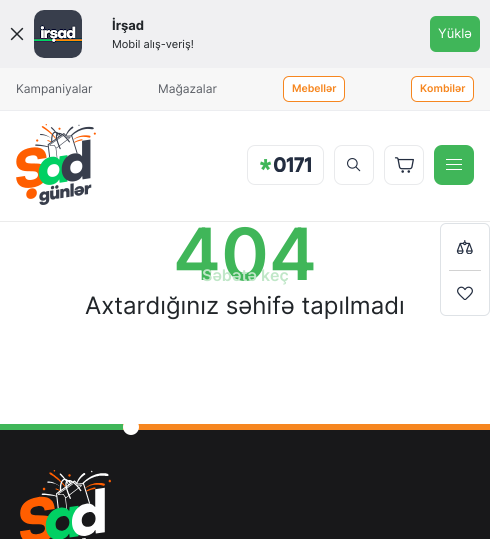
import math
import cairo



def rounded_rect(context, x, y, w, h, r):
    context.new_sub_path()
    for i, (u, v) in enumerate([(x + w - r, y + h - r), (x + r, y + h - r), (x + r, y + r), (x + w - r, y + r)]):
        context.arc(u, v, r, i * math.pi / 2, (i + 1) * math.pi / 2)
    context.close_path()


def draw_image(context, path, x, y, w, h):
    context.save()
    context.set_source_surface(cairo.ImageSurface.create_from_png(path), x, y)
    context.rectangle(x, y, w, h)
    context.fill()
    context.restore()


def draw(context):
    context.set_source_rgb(1, 1, 1)
    context.paint()
    context.set_source_rgb(240 / 255, 240 / 255, 242 / 255)
    context.rectangle(0, 0, 490, 68)
    context.fill()
    draw_image(context, "images/1.png", 10, 27, 14, 14)
    draw_image(context, "images/2.png", 34, 10, 48, 48)
    context.set_source_rgb(64 / 255, 182 / 255, 89 / 255)
    rounded_rect(context, 430, 16, 50, 36, 6)
    context.fill()
    context.set_source_rgb(247 / 255, 247 / 255, 247 / 255)
    context.rectangle(0, 68, 490, 42)
    context.fill()
    context.set_source_rgb(236 / 255, 237 / 255, 240 / 255)
    context.rectangle(0, 110, 490, 1)
    context.fill()
    context.set_source_rgb(1, 1, 1)
    rounded_rect(context, 283.5, 76.5, 61, 25, 5.5)
    context.fill_preserve()
    context.set_source_rgb(246 / 255, 134 / 255, 31 / 255)
    context.set_line_width(1)
    context.stroke()
    context.set_source_rgb(1, 1, 1)
    rounded_rect(context, 411.5, 76.5, 62, 25, 5.5)
    context.fill_preserve()
    context.set_source_rgb(246 / 255, 134 / 255, 31 / 255)
    context.stroke()
    context.set_source_rgb(235 / 255, 235 / 255, 235 / 255)
    context.rectangle(0, 221, 490, 1)
    context.fill()
    draw_image(context, "images/3.png", 16, 124, 80, 81)
    rounded_rect(context, 247.5, 145.5, 76, 39, 7.5)
    context.set_source_rgb(233 / 255, 234 / 255, 236 / 255)
    context.stroke()
    draw_image(context, "images/4.png", 260, 157, 51, 15)
    rounded_rect(context, 334.5, 145.5, 39, 39, 7.5)
    context.stroke()
    draw_image(context, "images/5.png", 347, 158, 14, 14)
    rounded_rect(context, 384.5, 145.5, 39, 39, 7.5)
    context.stroke()
    draw_image(context, "images/6.png", 394, 157, 20, 16)
    context.set_source_rgb(64 / 255, 182 / 255, 89 / 255)
    rounded_rect(context, 434, 145, 40, 40, 8)
    context.fill()
    context.set_source_rgb(1, 1, 1)
    context.rectangle(446, 164, 16, 1)
    context.fill()
    context.rectangle(446, 159, 16, 1)
    context.fill()
    context.rectangle(446, 169, 16, 1)
    context.fill()
    rounded_rect(context, 440.5, 223.5, 49, 92, 5.5)
    context.set_source_rgb(222 / 255, 226 / 255, 230 / 255)
    context.stroke()
    draw_image(context, "images/7.png", 456, 240, 17, 14)
    context.set_source_rgb(210 / 255, 210 / 255, 210 / 255)
    context.rectangle(449, 270, 32, 1)
    context.fill()
    draw_image(context, "images/8.png", 457, 286, 16, 14)
    context.set_source_rgb(24 / 255, 24 / 255, 26 / 255)
    context.rectangle(0, 430, 490, 109)
    context.fill()
    context.set_source_rgb(64 / 255, 182 / 255, 89 / 255)
    context.rectangle(0, 424, 123, 6)
    context.fill()
    context.set_source_rgb(246 / 255, 134 / 255, 31 / 255)
    context.rectangle(123, 424, 367, 6)
    context.fill()
    context.set_source_rgb(1, 1, 1)
    context.arc(131, 427, 8, 0, 2 * math.pi)
    context.fill()
    draw_image(context, "images/9.png", 20, 470, 91, 69)
    context.select_font_face("Inter", cairo.FontSlant.NORMAL, cairo.FontWeight.BOLD)
    context.set_font_size(13)
    context.set_source_rgb(33 / 255, 37 / 255, 41 / 255)
    context.move_to(112, 30)
    context.show_text("İrşad")
    context.select_font_face("Inter")
    context.set_font_size(11)
    context.move_to(112, 48)
    context.show_text("Mobil alış-veriş!")
    context.set_font_size(13)
    context.set_source_rgb(1, 1, 1)
    context.move_to(438, 38)
    context.show_text("Yüklə")
    context.set_font_size(12)
    context.set_source_rgb(91 / 255, 95 / 255, 102 / 255)
    context.move_to(16, 93)
    context.show_text("Kampaniyalar")
    context.move_to(158, 93)
    context.show_text("Mağazalar")
    context.select_font_face("Inter SemiBold")
    context.set_font_size(10.5)
    context.set_source_rgb(246 / 255, 134 / 255, 31 / 255)
    context.move_to(292, 92)
    context.show_text("Mebellər")
    context.move_to(420, 92)
    context.show_text("Kombilər")
    context.set_font_size(72)
    context.set_source_rgb(64 / 255, 182 / 255, 89 / 255)
    context.move_to(173, 280)
    context.show_text("404")
    context.select_font_face("Inter")
    context.set_font_size(24)
    context.set_source_rgb(33 / 255, 37 / 255, 41 / 255)
    context.move_to(85, 314)
    context.show_text("Axtardığınız səhifə tapılmadı")
    context.select_font_face("Inter SemiBold")
    context.set_font_size(16)
    context.set_source_rgb(192 / 255, 231 / 255, 200 / 255)
    context.move_to(202, 281)
    context.show_text("Səbətə keç")


surface = cairo.ImageSurface(cairo.Format.RGB24, 490, 539)
context = cairo.Context(surface)
options = cairo.FontOptions()
options.set_hint_metrics(cairo.HintMetrics.OFF)
options.set_hint_style(cairo.HintStyle.NONE)
context.set_font_options(options)
context.set_miter_limit(4)
draw(context)
surface.write_to_png("out.png")
